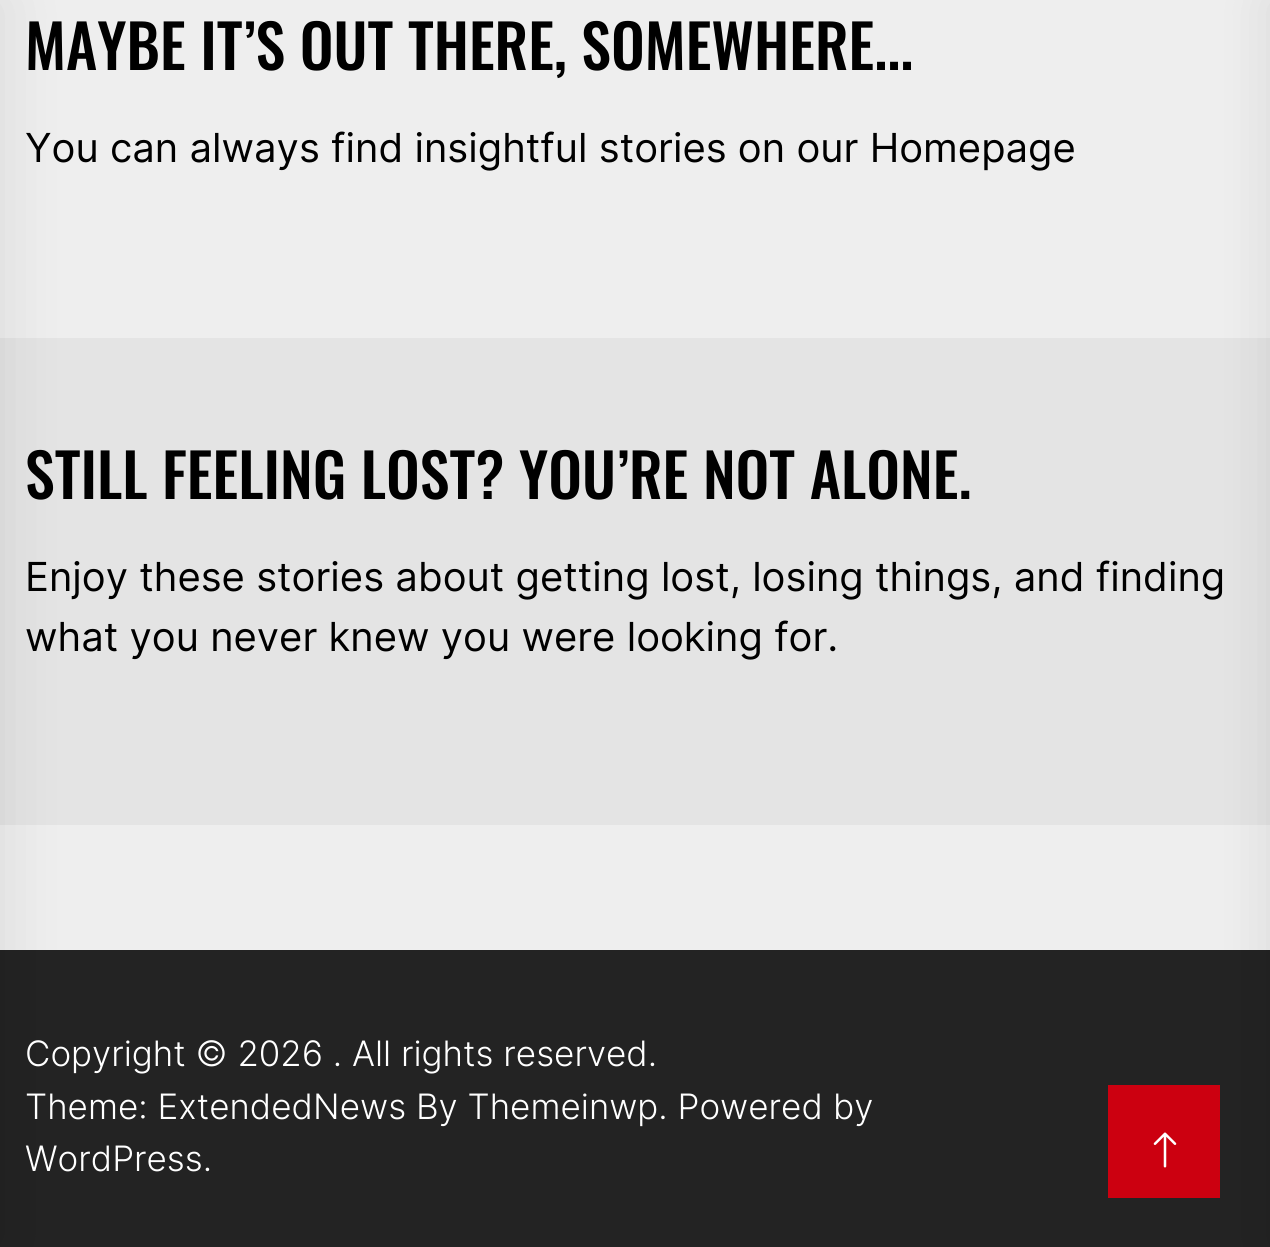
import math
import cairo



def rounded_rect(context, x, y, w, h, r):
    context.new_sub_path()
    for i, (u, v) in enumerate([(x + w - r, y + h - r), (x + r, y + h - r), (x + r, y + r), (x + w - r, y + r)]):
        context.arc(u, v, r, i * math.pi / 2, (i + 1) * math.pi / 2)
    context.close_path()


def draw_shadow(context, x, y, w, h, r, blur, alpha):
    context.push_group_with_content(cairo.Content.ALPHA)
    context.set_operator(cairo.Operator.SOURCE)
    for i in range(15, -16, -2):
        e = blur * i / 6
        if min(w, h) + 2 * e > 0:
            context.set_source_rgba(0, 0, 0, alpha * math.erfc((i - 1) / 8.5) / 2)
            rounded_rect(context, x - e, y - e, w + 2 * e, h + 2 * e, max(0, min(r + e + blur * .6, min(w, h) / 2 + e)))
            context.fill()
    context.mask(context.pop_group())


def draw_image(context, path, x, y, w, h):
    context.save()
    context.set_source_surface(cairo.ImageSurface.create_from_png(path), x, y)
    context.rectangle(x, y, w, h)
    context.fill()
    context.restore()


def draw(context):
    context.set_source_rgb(238 / 255, 238 / 255, 238 / 255)
    context.paint()
    context.set_source_rgb(228 / 255, 228 / 255, 228 / 255)
    context.rectangle(0, 338, 1270, 487)
    context.fill()
    context.set_source_rgb(35 / 255, 35 / 255, 35 / 255)
    context.rectangle(0, 950, 1270, 297)
    context.fill()
    context.set_source_rgb(0, 0, 0)
    draw_shadow(context, -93, 0, 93, 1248, 0, 31, 0.1)
    draw_shadow(context, 1270, 0, 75, 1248, 0, 25, 0.1)
    context.set_source_rgb(204 / 255, 0, 16 / 255)
    context.rectangle(1108, 1085, 112, 113)
    context.fill()
    draw_image(context, "images/1.png", 1153, 1132, 24, 36)
    context.select_font_face("Oswald Medium")
    context.set_font_size(60)
    context.set_source_rgb(0, 0, 0)
    context.move_to(25, 70)
    context.show_text("MAYBE IT’S OUT THERE, SOMEWHERE...")
    context.select_font_face("Inter")
    context.set_font_size(40)
    context.move_to(25, 162)
    context.show_text("You can always find insightful stories on our Homepage")
    context.select_font_face("Oswald Medium")
    context.set_font_size(60)
    context.move_to(25, 499)
    context.show_text("STILL FEELING LOST? YOU’RE NOT ALONE.")
    context.select_font_face("Inter")
    context.set_font_size(40)
    context.move_to(25, 591)
    context.show_text("Enjoy these stories about getting lost, losing things, and finding")
    context.move_to(25, 651)
    context.show_text("what you never knew you were looking for.")
    context.select_font_face("Inter Light")
    context.set_font_size(35)
    context.set_source_rgb(1, 1, 1)
    context.move_to(25, 1066)
    context.show_text("Copyright © 2026 . All rights reserved.")
    context.move_to(25, 1119)
    context.show_text("Theme: ExtendedNews By Themeinwp. Powered by")
    context.move_to(25, 1171)
    context.show_text("WordPress.")


surface = cairo.ImageSurface(cairo.Format.RGB24, 1270, 1247)
context = cairo.Context(surface)
options = cairo.FontOptions()
options.set_hint_metrics(cairo.HintMetrics.OFF)
options.set_hint_style(cairo.HintStyle.NONE)
context.set_font_options(options)
context.set_miter_limit(4)
draw(context)
surface.write_to_png("out.png")
